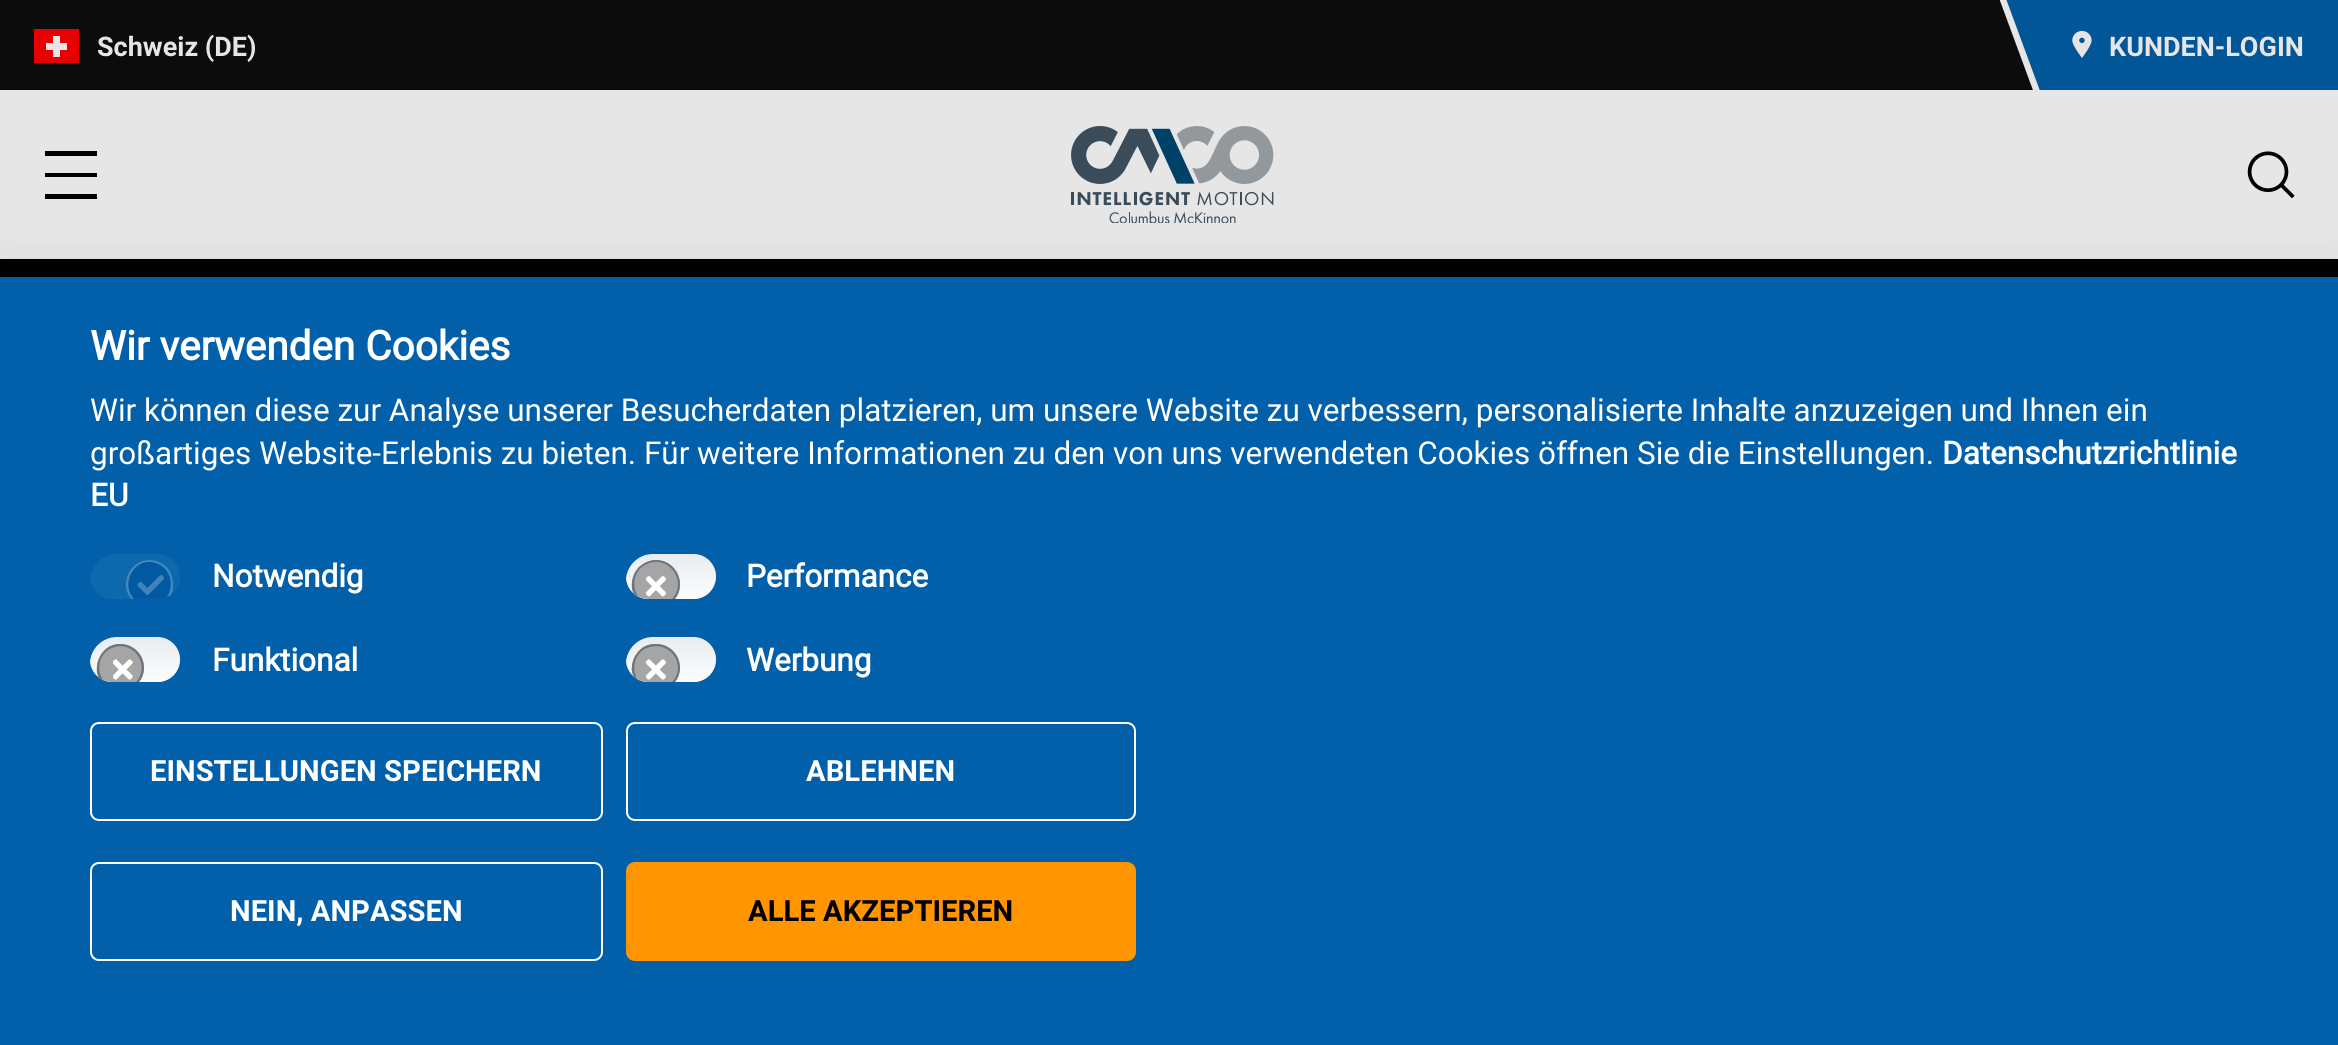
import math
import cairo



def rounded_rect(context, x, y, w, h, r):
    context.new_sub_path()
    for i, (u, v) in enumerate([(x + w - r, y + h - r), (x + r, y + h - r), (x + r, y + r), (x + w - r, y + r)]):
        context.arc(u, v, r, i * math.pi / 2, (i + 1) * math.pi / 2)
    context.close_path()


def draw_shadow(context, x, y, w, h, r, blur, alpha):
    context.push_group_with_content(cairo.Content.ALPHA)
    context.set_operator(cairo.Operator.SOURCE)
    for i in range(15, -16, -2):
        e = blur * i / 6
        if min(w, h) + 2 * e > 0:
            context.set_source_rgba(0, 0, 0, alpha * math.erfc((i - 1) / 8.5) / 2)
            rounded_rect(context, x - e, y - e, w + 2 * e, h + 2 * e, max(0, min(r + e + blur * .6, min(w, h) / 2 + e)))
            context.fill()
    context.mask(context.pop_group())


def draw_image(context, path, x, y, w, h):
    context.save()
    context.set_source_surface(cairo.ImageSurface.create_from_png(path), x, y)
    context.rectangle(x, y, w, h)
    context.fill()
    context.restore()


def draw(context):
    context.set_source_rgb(230 / 255, 230 / 255, 230 / 255)
    context.paint()
    context.set_source_rgb(12 / 255, 12 / 255, 12 / 255)
    context.rectangle(0, 0, 2000, 90)
    context.fill()
    context.set_source_rgb(230 / 255, 0, 0)
    context.rectangle(34, 29, 45, 34)
    context.fill()
    context.set_source_rgb(230 / 255, 230 / 255, 230 / 255)
    context.rectangle(46, 43, 21, 7)
    context.fill()
    context.rectangle(53, 36, 7, 21)
    context.fill()
    context.set_source_rgb(1 / 255, 86 / 255, 152 / 255)
    context.rectangle(2000, 0, 338, 90)
    context.fill()
    context.save()
    context.rectangle(2000, 0, 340, 90)
    context.clip()
    context.set_source_rgb(12 / 255, 12 / 255, 12 / 255)
    context.new_path()
    context.move_to(2045, 112)
    context.line_to(2000, 112)
    context.line_to(2000, 0)
    context.close_path()
    context.fill()
    context.set_source_rgb(230 / 255, 230 / 255, 230 / 255)
    context.new_path()
    context.move_to(2040, 91)
    context.line_to(2034, 93)
    context.line_to(1999, -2)
    context.line_to(2005, -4)
    context.close_path()
    context.fill()
    context.restore()
    draw_image(context, "images/1.png", 2072, 30, 20, 28)
    context.set_source_rgb(0, 0, 0)
    context.new_path()
    context.move_to(45, 151)
    context.line_to(97, 151)
    context.line_to(97, 156)
    context.line_to(45, 156)
    context.close_path()
    context.move_to(45, 173)
    context.line_to(97, 173)
    context.line_to(97, 177)
    context.line_to(45, 177)
    context.close_path()
    context.move_to(45, 194)
    context.line_to(97, 194)
    context.line_to(97, 199)
    context.line_to(45, 199)
    context.close_path()
    context.fill()
    draw_image(context, "images/2.png", 1071, 126, 203, 97)
    draw_image(context, "images/3.png", 2247, 151, 48, 48)
    context.rectangle(0, 259, 2338, 18)
    context.fill()
    context.set_source_rgb(0, 0, 0)
    draw_shadow(context, 0, 277, 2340, 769, 0, 27, 0.1)
    context.set_source_rgb(1 / 255, 96 / 255, 169 / 255)
    context.rectangle(0, 277, 2338, 768)
    context.fill()
    rounded_rect(context, 91, 723, 511, 97, 8)
    context.set_source_rgb(1, 1, 1)
    context.stroke()
    rounded_rect(context, 627, 723, 508, 97, 8)
    context.stroke()
    rounded_rect(context, 91, 863, 511, 97, 8)
    context.stroke()
    context.set_source_rgb(1, 149 / 255, 0)
    rounded_rect(context, 627, 863, 508, 97, 8)
    context.fill_preserve()
    context.stroke()
    context.select_font_face("Roboto", cairo.FontSlant.NORMAL, cairo.FontWeight.BOLD)
    context.set_font_size(27)
    context.set_source_rgb(230 / 255, 230 / 255, 230 / 255)
    context.move_to(97, 56)
    context.show_text("Schweiz (DE)")
    context.move_to(2109, 56)
    context.show_text("KUNDEN-LOGIN")
    context.select_font_face("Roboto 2", cairo.FontSlant.NORMAL, cairo.FontWeight.BOLD)
    context.set_font_size(40.5)
    context.set_source_rgb(1, 1, 1)
    context.move_to(90, 360)
    context.show_text("Wir verwenden Cookies")
    context.select_font_face("Roboto")
    context.set_font_size(31.5)
    context.move_to(90, 421)
    context.show_text("Wir können diese zur Analyse unserer Besucherdaten platzieren, um unsere Website zu verbessern, personalisierte Inhalte anzuzeigen und Ihnen ein")
    context.move_to(90, 464)
    context.show_text("großartiges Website-Erlebnis zu bieten. Für weitere Informationen zu den von uns verwendeten Cookies öffnen Sie die Einstellungen.")
    context.select_font_face("Roboto 2", cairo.FontSlant.NORMAL, cairo.FontWeight.BOLD)
    context.move_to(1942, 464)
    context.show_text("Datenschutzrichtlinie")
    context.move_to(90, 506)
    context.show_text("EU")
    context.move_to(212, 587)
    context.show_text("Notwendig")
    context.save()
    rounded_rect(context, 90, 554, 90, 45, 22.5)
    context.clip()
    context.set_source_rgb(14 / 255, 104 / 255, 173 / 255)
    rounded_rect(context, 90, 554, 144, 58, 27)
    context.fill()
    gradient = cairo.LinearGradient(162, 554, 162, 612)
    gradient.add_color_stop_rgba(0, 14 / 255, 104 / 255, 173 / 255, 0)
    gradient.add_color_stop_rgba(0.9, 14 / 255, 104 / 255, 173 / 255, 1)
    context.set_source(gradient)
    rounded_rect(context, 90, 554, 144, 58, 27)
    context.fill()
    context.set_source_rgb(1 / 255, 90 / 255, 161 / 255)
    rounded_rect(context, 126, 560, 47, 48, 23.5)
    context.fill()
    context.restore()
    draw_image(context, "images/4.png", 137, 575, 27, 20)
    context.set_source_rgb(65 / 255, 136 / 255, 191 / 255)
    context.new_path()
    context.move_to(150, 560)
    context.curve_to(129, 560, 119, 584, 131, 599)
    context.line_to(134, 599)
    context.curve_to(119, 583, 136, 554, 158, 564)
    context.curve_to(163, 566, 167, 570, 169, 575)
    context.curve_to(172, 582, 171, 591, 167, 597)
    context.line_to(171, 595)
    context.curve_to(175, 588, 173, 576, 169, 570)
    context.curve_to(165, 564, 157, 560, 150, 560)
    context.close_path()
    context.fill()
    context.set_source_rgb(1, 1, 1)
    context.move_to(746, 587)
    context.show_text("Performance")
    context.save()
    rounded_rect(context, 626, 554, 90, 45, 22.5)
    context.clip()
    context.set_source_rgb(233 / 255, 236 / 255, 239 / 255)
    rounded_rect(context, 626, 554, 144, 58, 27)
    context.fill()
    gradient = cairo.LinearGradient(698, 554, 698, 612)
    gradient.add_color_stop_rgba(0, 1, 1, 1, 0)
    gradient.add_color_stop_rgba(0.9, 1, 1, 1, 1)
    context.set_source(gradient)
    rounded_rect(context, 626, 554, 144, 58, 27)
    context.fill()
    context.set_source_rgb(165 / 255, 165 / 255, 165 / 255)
    context.arc(656, 584, 24, 0, 2 * math.pi)
    context.fill()
    context.restore()
    draw_image(context, "images/5.png", 646, 576, 20, 21)
    context.set_source_rgb(108 / 255, 117 / 255, 125 / 255)
    context.new_path()
    context.move_to(656, 560)
    context.curve_to(650, 560, 644, 563, 639, 567)
    context.curve_to(633, 573, 629, 586, 634, 594)
    context.line_to(638, 596)
    context.curve_to(634, 590, 633, 582, 636, 575)
    context.curve_to(638, 570, 642, 566, 647, 564)
    context.curve_to(669, 554, 688, 582, 672, 599)
    context.line_to(675, 599)
    context.curve_to(687, 584, 676, 560, 656, 560)
    context.close_path()
    context.fill()
    context.set_source_rgb(1, 1, 1)
    context.move_to(212, 671)
    context.show_text("Funktional")
    context.save()
    rounded_rect(context, 90, 637, 90, 45, 22.5)
    context.clip()
    context.set_source_rgb(233 / 255, 236 / 255, 239 / 255)
    rounded_rect(context, 90, 637, 144, 58, 27)
    context.fill()
    gradient = cairo.LinearGradient(162, 637, 162, 695)
    gradient.add_color_stop_rgba(0, 1, 1, 1, 0)
    gradient.add_color_stop_rgba(0.9, 1, 1, 1, 1)
    context.set_source(gradient)
    rounded_rect(context, 90, 637, 144, 58, 27)
    context.fill()
    context.set_source_rgb(165 / 255, 165 / 255, 165 / 255)
    context.arc(120.5, 667.5, 23.5, 0, 2 * math.pi)
    context.fill()
    context.restore()
    draw_image(context, "images/6.png", 113, 659, 20, 21)
    context.set_source_rgb(108 / 255, 117 / 255, 125 / 255)
    context.new_path()
    context.move_to(120, 644)
    context.curve_to(114, 644, 108, 646, 104, 651)
    context.curve_to(98, 657, 94, 670, 99, 678)
    context.line_to(103, 680)
    context.curve_to(99, 674, 98, 666, 101, 659)
    context.curve_to(103, 654, 107, 650, 112, 648)
    context.curve_to(134, 639, 151, 666, 136, 682)
    context.line_to(139, 682)
    context.curve_to(151, 667, 140, 644, 120, 644)
    context.close_path()
    context.fill()
    context.set_source_rgb(1, 1, 1)
    context.move_to(746, 671)
    context.show_text("Werbung")
    context.save()
    rounded_rect(context, 626, 637, 90, 45, 22.5)
    context.clip()
    context.set_source_rgb(233 / 255, 236 / 255, 239 / 255)
    rounded_rect(context, 626, 637, 144, 58, 27)
    context.fill()
    gradient = cairo.LinearGradient(698, 637, 698, 695)
    gradient.add_color_stop_rgba(0, 1, 1, 1, 0)
    gradient.add_color_stop_rgba(0.9, 1, 1, 1, 1)
    context.set_source(gradient)
    rounded_rect(context, 626, 637, 144, 58, 27)
    context.fill()
    context.set_source_rgb(165 / 255, 165 / 255, 165 / 255)
    rounded_rect(context, 632, 644, 48, 47, 23.5)
    context.fill()
    context.restore()
    draw_image(context, "images/7.png", 646, 659, 20, 21)
    context.set_source_rgb(108 / 255, 117 / 255, 125 / 255)
    context.new_path()
    context.move_to(656, 644)
    context.curve_to(649, 644, 643, 646, 639, 651)
    context.curve_to(633, 657, 629, 669, 634, 677)
    context.line_to(637, 679)
    context.curve_to(634, 673, 633, 666, 636, 659)
    context.curve_to(638, 654, 642, 650, 647, 648)
    context.curve_to(669, 639, 688, 665, 672, 682)
    context.line_to(675, 682)
    context.curve_to(687, 667, 676, 644, 656, 644)
    context.close_path()
    context.fill()
    context.select_font_face("Roboto", cairo.FontSlant.NORMAL, cairo.FontWeight.BOLD)
    context.set_font_size(29.25)
    context.set_source_rgb(1, 1, 1)
    context.move_to(150, 781)
    context.show_text("EINSTELLUNGEN SPEICHERN")
    context.move_to(806, 781)
    context.show_text("ABLEHNEN")
    context.move_to(230, 921)
    context.show_text("NEIN, ANPASSEN")
    context.set_source_rgb(0, 0, 0)
    context.move_to(748, 921)
    context.show_text("ALLE AKZEPTIEREN")


surface = cairo.ImageSurface(cairo.Format.RGB24, 2338, 1045)
context = cairo.Context(surface)
options = cairo.FontOptions()
options.set_hint_metrics(cairo.HintMetrics.OFF)
options.set_hint_style(cairo.HintStyle.NONE)
context.set_font_options(options)
context.set_miter_limit(4)
draw(context)
surface.write_to_png("out.png")
